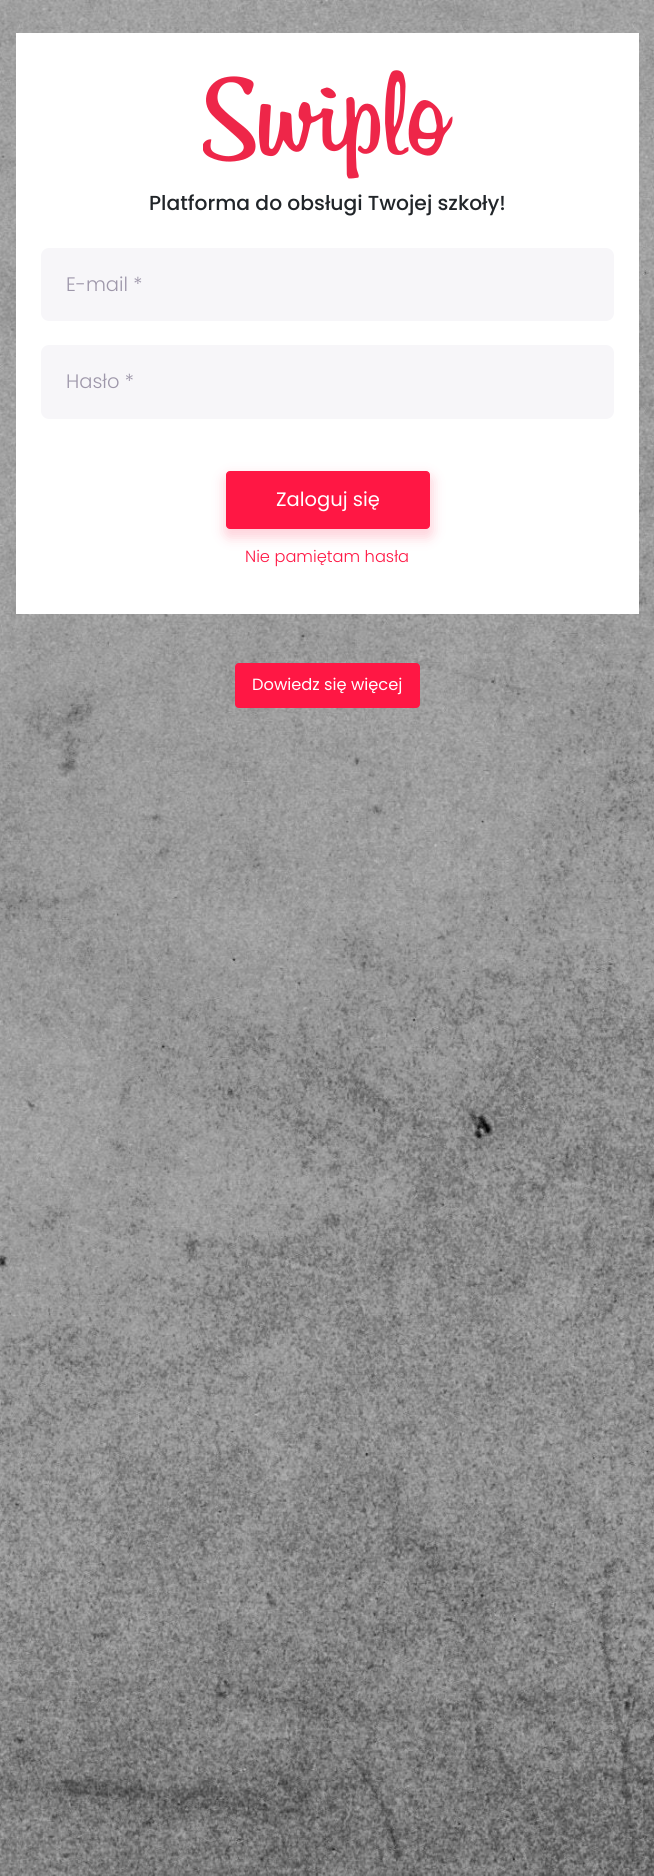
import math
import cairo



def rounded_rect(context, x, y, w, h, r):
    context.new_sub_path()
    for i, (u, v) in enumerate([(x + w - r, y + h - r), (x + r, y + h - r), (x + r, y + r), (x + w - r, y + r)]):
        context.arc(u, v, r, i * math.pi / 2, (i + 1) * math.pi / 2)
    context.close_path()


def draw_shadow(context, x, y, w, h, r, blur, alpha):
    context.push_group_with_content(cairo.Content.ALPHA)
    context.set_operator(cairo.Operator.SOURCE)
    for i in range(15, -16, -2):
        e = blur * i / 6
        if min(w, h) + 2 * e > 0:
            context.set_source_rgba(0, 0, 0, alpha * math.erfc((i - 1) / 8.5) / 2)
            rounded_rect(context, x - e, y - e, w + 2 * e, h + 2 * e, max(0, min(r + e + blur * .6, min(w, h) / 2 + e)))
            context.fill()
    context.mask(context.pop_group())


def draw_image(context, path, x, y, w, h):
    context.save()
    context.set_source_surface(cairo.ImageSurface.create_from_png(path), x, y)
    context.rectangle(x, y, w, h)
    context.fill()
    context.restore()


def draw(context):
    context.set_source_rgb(1, 1, 1)
    context.paint()
    draw_image(context, "images/1.png", 0, 0, 654, 1876)
    context.set_source_rgb(1, 1, 1)
    context.rectangle(16, 33, 623, 581)
    context.fill()
    draw_image(context, "images/2.png", 203, 70, 250, 109)
    context.set_source_rgb(247 / 255, 246 / 255, 249 / 255)
    rounded_rect(context, 41, 248, 573, 73, 8)
    context.fill()
    rounded_rect(context, 41, 345, 573, 74, 8)
    context.fill()
    context.set_source_rgb(1, 23 / 255, 68 / 255)
    draw_shadow(context, 224, 475, 209, 63, 6, 6, 0.19)
    context.set_source_rgb(1, 23 / 255, 68 / 255)
    rounded_rect(context, 226.5, 471.5, 203, 57, 3.5)
    context.fill_preserve()
    context.set_line_width(1)
    context.stroke()
    rounded_rect(context, 235, 663, 185, 45, 4)
    context.fill()
    context.select_font_face("Poppins Medium")
    context.set_font_size(20.3)
    context.set_source_rgb(33 / 255, 37 / 255, 41 / 255)
    context.move_to(149, 210)
    context.show_text("Platforma do obsługi Twojej szkoły!")
    context.select_font_face("Poppins Light")
    context.set_font_size(19.5)
    context.set_source_rgb(158 / 255, 151 / 255, 170 / 255)
    context.move_to(66, 291)
    context.show_text("E-mail *")
    context.move_to(66, 388)
    context.show_text("Hasło *")
    context.select_font_face("Poppins")
    context.set_source_rgb(1, 1, 1)
    context.move_to(276, 506)
    context.show_text("Zaloguj się")
    context.select_font_face("Poppins Light")
    context.set_font_size(16.25)
    context.set_source_rgb(1, 23 / 255, 68 / 255)
    context.move_to(245, 562)
    context.show_text("Nie pamiętam hasła")
    context.select_font_face("Poppins")
    context.set_source_rgb(1, 1, 1)
    context.move_to(252, 690)
    context.show_text("Dowiedz się więcej")


surface = cairo.ImageSurface(cairo.Format.RGB24, 654, 1876)
context = cairo.Context(surface)
options = cairo.FontOptions()
options.set_hint_metrics(cairo.HintMetrics.OFF)
options.set_hint_style(cairo.HintStyle.NONE)
context.set_font_options(options)
context.set_miter_limit(4)
draw(context)
surface.write_to_png("out.png")
